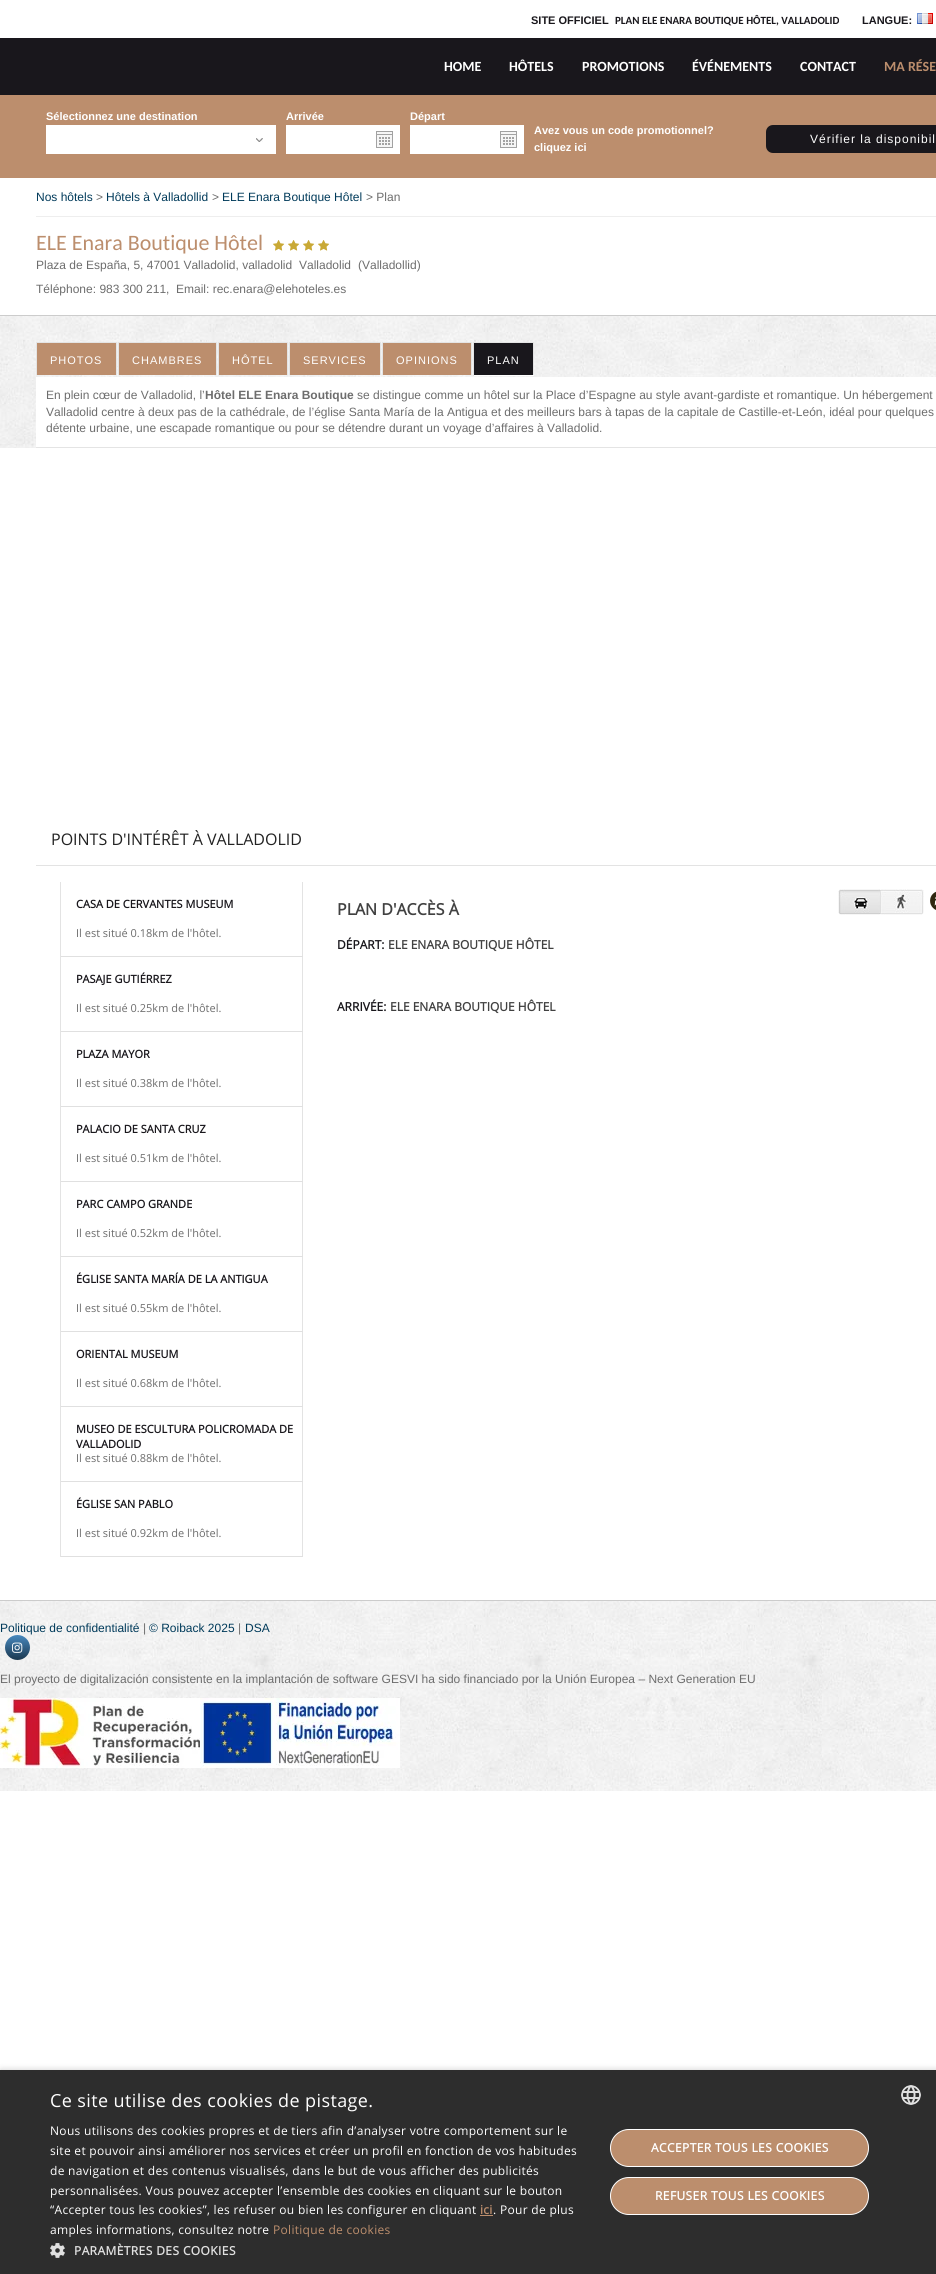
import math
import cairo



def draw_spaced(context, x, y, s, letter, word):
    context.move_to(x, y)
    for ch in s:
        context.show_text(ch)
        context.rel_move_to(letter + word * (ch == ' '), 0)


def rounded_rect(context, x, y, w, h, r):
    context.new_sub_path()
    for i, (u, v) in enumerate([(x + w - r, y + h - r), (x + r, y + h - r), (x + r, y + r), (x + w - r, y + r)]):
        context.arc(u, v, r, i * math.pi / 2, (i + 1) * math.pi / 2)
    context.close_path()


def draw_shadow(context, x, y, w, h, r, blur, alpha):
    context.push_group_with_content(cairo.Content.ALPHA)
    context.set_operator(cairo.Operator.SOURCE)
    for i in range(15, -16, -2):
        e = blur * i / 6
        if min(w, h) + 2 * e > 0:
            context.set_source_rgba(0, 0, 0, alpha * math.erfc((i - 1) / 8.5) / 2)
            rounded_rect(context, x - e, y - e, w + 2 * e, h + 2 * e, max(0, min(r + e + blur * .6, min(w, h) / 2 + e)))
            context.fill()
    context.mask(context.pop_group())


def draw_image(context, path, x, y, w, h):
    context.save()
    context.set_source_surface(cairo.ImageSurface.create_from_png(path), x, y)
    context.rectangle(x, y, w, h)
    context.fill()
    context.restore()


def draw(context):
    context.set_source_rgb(1, 1, 1)
    context.paint()
    context.set_source_rgb(25 / 255, 23 / 255, 28 / 255)
    context.rectangle(0, 38, 936, 57)
    context.fill()
    draw_image(context, "images/1.png", 917, 13, 16, 11)
    context.set_source_rgb(188 / 255, 142 / 255, 109 / 255)
    context.rectangle(0, 95, 936, 83)
    context.fill()
    context.set_source_rgb(1, 1, 1)
    context.rectangle(46, 125, 230, 29)
    context.fill()
    draw_image(context, "images/2.png", 256, 138, 7, 4)
    context.rectangle(286, 125, 114, 29)
    context.fill()
    draw_image(context, "images/3.png", 376, 131, 17, 17)
    context.rectangle(410, 125, 114, 29)
    context.fill()
    draw_image(context, "images/3.png", 500, 131, 17, 17)
    context.set_source_rgb(25 / 255, 23 / 255, 28 / 255)
    rounded_rect(context, 766, 125, 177, 28, 7)
    context.fill()
    context.set_source_rgb(238 / 255, 238 / 255, 238 / 255)
    context.rectangle(36, 216, 900, 1)
    context.fill()
    draw_image(context, "images/4.png", 273, 240, 12, 11)
    draw_image(context, "images/4.png", 288, 240, 12, 11)
    draw_image(context, "images/4.png", 303, 240, 12, 11)
    draw_image(context, "images/4.png", 318, 240, 12, 11)
    draw_image(context, "images/5.png", 0, 316, 936, 132)
    context.set_source_rgb(204 / 255, 204 / 255, 204 / 255)
    context.rectangle(0, 315, 936, 1)
    context.fill()
    context.set_source_rgb(1, 1, 1)
    context.rectangle(36, 377, 900, 70)
    context.fill()
    draw_image(context, "images/6.png", 36, 342, 900, 35)
    context.set_source_rgb(188 / 255, 142 / 255, 109 / 255)
    context.rectangle(37, 343, 79, 32)
    context.fill()
    context.set_source_rgb(228 / 255, 228 / 255, 228 / 255)
    context.rectangle(36, 342, 81, 1)
    context.fill()
    context.rectangle(116, 342, 1, 33)
    context.fill()
    context.rectangle(36, 342, 1, 33)
    context.fill()
    context.set_source_rgb(188 / 255, 142 / 255, 109 / 255)
    context.rectangle(119, 343, 97, 32)
    context.fill()
    context.set_source_rgb(228 / 255, 228 / 255, 228 / 255)
    context.rectangle(118, 342, 99, 1)
    context.fill()
    context.rectangle(216, 342, 1, 33)
    context.fill()
    context.rectangle(118, 342, 1, 33)
    context.fill()
    context.set_source_rgb(188 / 255, 142 / 255, 109 / 255)
    context.rectangle(219, 343, 68, 32)
    context.fill()
    context.set_source_rgb(228 / 255, 228 / 255, 228 / 255)
    context.rectangle(218, 342, 70, 1)
    context.fill()
    context.rectangle(287, 342, 1, 33)
    context.fill()
    context.rectangle(218, 342, 1, 33)
    context.fill()
    context.set_source_rgb(188 / 255, 142 / 255, 109 / 255)
    context.rectangle(290, 343, 90, 32)
    context.fill()
    context.set_source_rgb(228 / 255, 228 / 255, 228 / 255)
    context.rectangle(289, 342, 92, 1)
    context.fill()
    context.rectangle(380, 342, 1, 33)
    context.fill()
    context.rectangle(289, 342, 1, 33)
    context.fill()
    context.set_source_rgb(188 / 255, 142 / 255, 109 / 255)
    context.rectangle(383, 343, 88, 32)
    context.fill()
    context.set_source_rgb(228 / 255, 228 / 255, 228 / 255)
    context.rectangle(382, 342, 90, 1)
    context.fill()
    context.rectangle(471, 342, 1, 33)
    context.fill()
    context.rectangle(382, 342, 1, 33)
    context.fill()
    context.set_source_rgb(25 / 255, 23 / 255, 28 / 255)
    context.rectangle(474, 343, 59, 32)
    context.fill()
    context.set_source_rgb(228 / 255, 228 / 255, 228 / 255)
    context.rectangle(473, 342, 61, 1)
    context.fill()
    context.rectangle(533, 342, 1, 34)
    context.fill()
    context.set_source_rgb(1, 1, 1)
    context.rectangle(473, 375, 61, 1)
    context.fill()
    context.set_source_rgb(228 / 255, 228 / 255, 228 / 255)
    context.rectangle(473, 342, 1, 34)
    context.fill()
    context.rectangle(36, 447, 900, 1)
    context.fill()
    context.set_source_rgb(227 / 255, 227 / 255, 227 / 255)
    context.rectangle(36, 865, 900, 1)
    context.fill()
    context.rectangle(302, 882, 1, 675)
    context.fill()
    context.rectangle(60, 882, 1, 675)
    context.fill()
    context.set_source_rgb(224 / 255, 224 / 255, 224 / 255)
    context.rectangle(61, 956, 242, 1)
    context.fill()
    context.rectangle(61, 1031, 242, 1)
    context.fill()
    context.rectangle(61, 1106, 242, 1)
    context.fill()
    context.rectangle(61, 1181, 242, 1)
    context.fill()
    context.rectangle(61, 1256, 242, 1)
    context.fill()
    context.rectangle(61, 1331, 242, 1)
    context.fill()
    context.rectangle(61, 1406, 242, 1)
    context.fill()
    context.rectangle(61, 1481, 242, 1)
    context.fill()
    context.rectangle(61, 1556, 242, 1)
    context.fill()
    draw_image(context, "images/7.png", 838, 889, 86, 26)
    draw_image(context, "images/8.png", 930, 891, 6, 19)
    draw_image(context, "images/9.png", 0, 1601, 936, 190)
    context.set_source_rgb(204 / 255, 204 / 255, 204 / 255)
    context.rectangle(0, 1600, 936, 1)
    context.fill()
    gradient = cairo.LinearGradient(18, 1635, 18, 1660)
    gradient.add_color_stop_rgba(0, 71 / 255, 136 / 255, 190 / 255, 1)
    gradient.add_color_stop_rgba(1, 28 / 255, 56 / 255, 79 / 255, 1)
    context.set_source(gradient)
    context.arc(17.5, 1647.5, 12.5, 0, 2 * math.pi)
    context.fill()
    draw_image(context, "images/10.png", 12, 1642, 11, 11)
    draw_image(context, "images/11.png", 0, 1698, 200, 70)
    draw_image(context, "images/12.png", 200, 1698, 200, 70)
    context.set_source_rgb(0, 0, 0)
    draw_shadow(context, 1, 2072, 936, 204, 0, 4, 0.35)
    context.set_source_rgb(45 / 255, 45 / 255, 45 / 255)
    context.rectangle(0, 2070, 936, 204)
    context.fill()
    context.set_source_rgb(188 / 255, 142 / 255, 109 / 255)
    context.rectangle(480, 2215, 13, 1)
    context.fill()
    draw_image(context, "images/13.png", 50, 2243, 15, 15)
    rounded_rect(context, 610.5, 2129.5, 258, 37, 18.5)
    context.fill_preserve()
    context.set_source_rgb(1, 1, 1)
    context.set_line_width(1)
    context.stroke()
    context.set_source_rgb(188 / 255, 142 / 255, 109 / 255)
    rounded_rect(context, 610.5, 2177.5, 258, 37, 18.5)
    context.fill_preserve()
    context.set_source_rgb(1, 1, 1)
    context.stroke()
    draw_image(context, "images/14.png", 901, 2085, 20, 20)
    context.select_font_face("Liberation Sans", cairo.FontSlant.NORMAL, cairo.FontWeight.BOLD)
    context.set_font_size(11)
    context.set_source_rgb(25 / 255, 23 / 255, 28 / 255)
    context.move_to(531, 24)
    context.show_text("SITE OFFICIEL")
    context.select_font_face("Carlito", cairo.FontSlant.NORMAL, cairo.FontWeight.BOLD)
    context.move_to(615, 24)
    context.show_text("PLAN ELE ENARA BOUTIQUE HÔTEL, VALLADOLID")
    context.select_font_face("Liberation Sans", cairo.FontSlant.NORMAL, cairo.FontWeight.BOLD)
    context.move_to(862, 24)
    context.show_text("LANGUE:")
    context.select_font_face("Carlito", cairo.FontSlant.NORMAL, cairo.FontWeight.BOLD)
    context.set_font_size(14)
    context.set_source_rgb(1, 1, 1)
    context.move_to(444, 71)
    context.show_text("HOME")
    context.move_to(509, 71)
    context.show_text("HÔTELS")
    context.move_to(582, 71)
    context.show_text("PROMOTIONS")
    context.move_to(692, 71)
    context.show_text("ÉVÉNEMENTS")
    context.move_to(800, 71)
    context.show_text("CONTACT")
    context.set_source_rgb(188 / 255, 142 / 255, 109 / 255)
    context.move_to(884, 71)
    context.show_text("MA RÉSE")
    context.select_font_face("Liberation Sans", cairo.FontSlant.NORMAL, cairo.FontWeight.BOLD)
    context.set_font_size(11)
    context.set_source_rgb(1, 1, 1)
    context.move_to(46, 120)
    context.show_text("Sélectionnez une destination")
    context.move_to(286, 120)
    context.show_text("Arrivée")
    context.move_to(410, 120)
    context.show_text("Départ")
    context.move_to(534, 134)
    context.show_text("Avez vous un code promotionnel?")
    context.move_to(534, 151)
    context.show_text("cliquez ici")
    context.select_font_face("Liberation Sans")
    context.set_font_size(12)
    draw_spaced(context, 810, 143, "Vérifier la disponibil", 1, 0)
    context.set_source_rgb(0, 58 / 255, 90 / 255)
    context.move_to(36, 201)
    context.show_text("Nos hôtels")
    context.set_source_rgb(109 / 255, 109 / 255, 109 / 255)
    context.move_to(96, 201)
    context.show_text(">")
    context.set_source_rgb(0, 58 / 255, 90 / 255)
    context.move_to(106, 201)
    context.show_text("Hôtels à Valladollid")
    context.set_source_rgb(109 / 255, 109 / 255, 109 / 255)
    context.move_to(212, 201)
    context.show_text(">")
    context.set_source_rgb(0, 58 / 255, 90 / 255)
    context.move_to(222, 201)
    context.show_text("ELE Enara Boutique Hôtel")
    context.set_source_rgb(109 / 255, 109 / 255, 109 / 255)
    context.move_to(366, 201)
    context.show_text("> Plan")
    context.select_font_face("Carlito")
    context.set_font_size(22)
    context.set_source_rgb(188 / 255, 142 / 255, 109 / 255)
    context.move_to(36, 250)
    context.show_text("ELE Enara Boutique Hôtel")
    context.select_font_face("Liberation Sans")
    context.set_font_size(12)
    context.set_source_rgb(109 / 255, 109 / 255, 109 / 255)
    context.move_to(36, 269)
    context.show_text("Plaza de España, 5, 47001 Valladolid, valladolid")
    context.move_to(299, 269)
    context.show_text("Valladolid")
    context.move_to(358, 269)
    context.show_text("(Valladollid)")
    context.move_to(36, 293)
    context.show_text("Téléphone: 983 300 211,")
    context.move_to(176, 293)
    context.show_text("Email: rec.enara@elehoteles.es")
    context.set_font_size(11)
    context.set_source_rgb(1, 1, 1)
    draw_spaced(context, 50, 364, "PHOTOS", 1, 0)
    draw_spaced(context, 132, 364, "CHAMBRES", 1, 0)
    draw_spaced(context, 232, 364, "HÔTEL", 1, 0)
    draw_spaced(context, 303, 364, "SERVICES", 1, 0)
    draw_spaced(context, 396, 364, "OPINIONS", 1, 0)
    draw_spaced(context, 487, 364, "PLAN", 1, 0)
    context.set_font_size(12)
    context.set_source_rgb(109 / 255, 109 / 255, 109 / 255)
    context.move_to(46, 399)
    context.show_text("En plein cœur de Valladolid, l’")
    context.select_font_face("Liberation Sans", cairo.FontSlant.NORMAL, cairo.FontWeight.BOLD)
    context.move_to(205, 399)
    context.show_text("Hôtel ELE Enara Boutique")
    context.select_font_face("Liberation Sans")
    context.move_to(357, 399)
    context.show_text("se distingue comme un hôtel sur la Place d’Espagne au style avant-gardiste et romantique. Un hébergement")
    context.move_to(46, 416)
    context.show_text("Valladolid centre à deux pas de la cathédrale, de l’église Santa María de la Antigua et des meilleurs bars à tapas de la capitale de Castille-et-León, idéal pour quelques")
    context.move_to(46, 432)
    context.show_text("détente urbaine, une escapade romantique ou pour se détendre durant un voyage d’affaires à Valladolid.")
    context.select_font_face("Open Sans")
    context.set_font_size(16)
    context.set_source_rgb(34 / 255, 34 / 255, 34 / 255)
    context.move_to(51, 845)
    context.show_text("POINTS D'INTÉRÊT À VALLADOLID")
    context.select_font_face("Open Sans", cairo.FontSlant.NORMAL, cairo.FontWeight.BOLD)
    context.set_font_size(11)
    context.set_source_rgb(25 / 255, 23 / 255, 28 / 255)
    context.move_to(76, 908)
    context.show_text("CASA DE CERVANTES MUSEUM")
    context.select_font_face("Open Sans")
    context.set_source_rgb(109 / 255, 109 / 255, 109 / 255)
    context.move_to(76, 937)
    context.show_text("Il est situé 0.18km de l'hôtel.")
    context.select_font_face("Open Sans", cairo.FontSlant.NORMAL, cairo.FontWeight.BOLD)
    context.set_source_rgb(25 / 255, 23 / 255, 28 / 255)
    context.move_to(76, 983)
    context.show_text("PASAJE GUTIÉRREZ")
    context.select_font_face("Open Sans")
    context.set_source_rgb(109 / 255, 109 / 255, 109 / 255)
    context.move_to(76, 1012)
    context.show_text("Il est situé 0.25km de l'hôtel.")
    context.select_font_face("Open Sans", cairo.FontSlant.NORMAL, cairo.FontWeight.BOLD)
    context.set_source_rgb(25 / 255, 23 / 255, 28 / 255)
    context.move_to(76, 1058)
    context.show_text("PLAZA MAYOR")
    context.select_font_face("Open Sans")
    context.set_source_rgb(109 / 255, 109 / 255, 109 / 255)
    context.move_to(76, 1087)
    context.show_text("Il est situé 0.38km de l'hôtel.")
    context.select_font_face("Open Sans", cairo.FontSlant.NORMAL, cairo.FontWeight.BOLD)
    context.set_source_rgb(25 / 255, 23 / 255, 28 / 255)
    context.move_to(76, 1133)
    context.show_text("PALACIO DE SANTA CRUZ")
    context.select_font_face("Open Sans")
    context.set_source_rgb(109 / 255, 109 / 255, 109 / 255)
    context.move_to(76, 1162)
    context.show_text("Il est situé 0.51km de l'hôtel.")
    context.select_font_face("Open Sans", cairo.FontSlant.NORMAL, cairo.FontWeight.BOLD)
    context.set_source_rgb(25 / 255, 23 / 255, 28 / 255)
    context.move_to(76, 1208)
    context.show_text("PARC CAMPO GRANDE")
    context.select_font_face("Open Sans")
    context.set_source_rgb(109 / 255, 109 / 255, 109 / 255)
    context.move_to(76, 1237)
    context.show_text("Il est situé 0.52km de l'hôtel.")
    context.select_font_face("Open Sans", cairo.FontSlant.NORMAL, cairo.FontWeight.BOLD)
    context.set_source_rgb(25 / 255, 23 / 255, 28 / 255)
    context.move_to(76, 1283)
    context.show_text("ÉGLISE SANTA MARÍA DE LA ANTIGUA")
    context.select_font_face("Open Sans")
    context.set_source_rgb(109 / 255, 109 / 255, 109 / 255)
    context.move_to(76, 1312)
    context.show_text("Il est situé 0.55km de l'hôtel.")
    context.select_font_face("Open Sans", cairo.FontSlant.NORMAL, cairo.FontWeight.BOLD)
    context.set_source_rgb(25 / 255, 23 / 255, 28 / 255)
    context.move_to(76, 1358)
    context.show_text("ORIENTAL MUSEUM")
    context.select_font_face("Open Sans")
    context.set_source_rgb(109 / 255, 109 / 255, 109 / 255)
    context.move_to(76, 1387)
    context.show_text("Il est situé 0.68km de l'hôtel.")
    context.select_font_face("Open Sans", cairo.FontSlant.NORMAL, cairo.FontWeight.BOLD)
    context.set_source_rgb(25 / 255, 23 / 255, 28 / 255)
    context.move_to(76, 1433)
    context.show_text("MUSEO DE ESCULTURA POLICROMADA DE")
    context.move_to(76, 1448)
    context.show_text("VALLADOLID")
    context.select_font_face("Open Sans")
    context.set_source_rgb(109 / 255, 109 / 255, 109 / 255)
    context.move_to(76, 1462)
    context.show_text("Il est situé 0.88km de l'hôtel.")
    context.select_font_face("Open Sans", cairo.FontSlant.NORMAL, cairo.FontWeight.BOLD)
    context.set_source_rgb(25 / 255, 23 / 255, 28 / 255)
    context.move_to(76, 1508)
    context.show_text("ÉGLISE SAN PABLO")
    context.select_font_face("Open Sans")
    context.set_source_rgb(109 / 255, 109 / 255, 109 / 255)
    context.move_to(76, 1537)
    context.show_text("Il est situé 0.92km de l'hôtel.")
    context.select_font_face("Open Sans", cairo.FontSlant.NORMAL, cairo.FontWeight.BOLD)
    context.set_font_size(16)
    context.set_source_rgb(65 / 255, 65 / 255, 65 / 255)
    context.move_to(337, 915)
    context.show_text("PLAN D'ACCÈS À")
    context.set_font_size(12)
    context.set_source_rgb(25 / 255, 23 / 255, 28 / 255)
    context.move_to(337, 949)
    context.show_text("DÉPART:")
    context.set_source_rgb(65 / 255, 65 / 255, 65 / 255)
    context.move_to(388, 949)
    context.show_text("ELE ENARA BOUTIQUE HÔTEL")
    context.set_source_rgb(25 / 255, 23 / 255, 28 / 255)
    context.move_to(337, 1011)
    context.show_text("ARRIVÉE:")
    context.set_source_rgb(65 / 255, 65 / 255, 65 / 255)
    context.move_to(390, 1011)
    context.show_text("ELE ENARA BOUTIQUE HÔTEL")
    context.select_font_face("Liberation Sans")
    context.set_source_rgb(0, 58 / 255, 90 / 255)
    context.move_to(0, 1632)
    context.show_text("Politique de confidentialité")
    context.set_source_rgb(109 / 255, 109 / 255, 109 / 255)
    context.move_to(143, 1632)
    context.show_text("|")
    context.set_source_rgb(0, 58 / 255, 90 / 255)
    context.move_to(149, 1632)
    context.show_text("© Roiback 2025")
    context.set_source_rgb(109 / 255, 109 / 255, 109 / 255)
    context.move_to(238, 1632)
    context.show_text("|")
    context.set_source_rgb(0, 58 / 255, 90 / 255)
    context.move_to(245, 1632)
    context.show_text("DSA")
    context.set_source_rgb(109 / 255, 109 / 255, 109 / 255)
    context.move_to(0, 1683)
    context.show_text("El proyecto de digitalización consistente en la implantación de software GESVI ha sido financiado por la Unión Europea – Next Generation EU")
    context.select_font_face("Open Sans")
    context.set_font_size(18)
    context.set_source_rgb(1, 1, 1)
    draw_spaced(context, 50, 2107, "Ce site utilise des cookies de pistage.", 0.4, 0)
    context.set_font_size(12)
    draw_spaced(context, 50, 2135, "Nous utilisons des cookies propres et de tiers afin d’analyser votre comportement sur le", 0.3, 0)
    draw_spaced(context, 50, 2155, "site et pouvoir ainsi améliorer nos services et créer un profil en fonction de vos habitudes", 0.3, 0)
    draw_spaced(context, 50, 2175, "de navigation et des contenus visualisés, dans le but de vous afficher des publicités", 0.3, 0)
    draw_spaced(context, 50, 2195, "personnalisées. Vous pouvez accepter l’ensemble des cookies en cliquant sur le bouton", 0.3, 0)
    draw_spaced(context, 50, 2214, "“Accepter tous les cookies”, les refuser ou bien les configurer en cliquant", 0.3, 0)
    context.select_font_face("Open Sans", cairo.FontSlant.NORMAL, cairo.FontWeight.BOLD)
    context.set_source_rgb(188 / 255, 142 / 255, 109 / 255)
    draw_spaced(context, 480, 2214, "ici", 0.3, 0)
    context.select_font_face("Open Sans")
    context.set_source_rgb(1, 1, 1)
    draw_spaced(context, 493, 2214, ". Pour de plus", 0.3, 0)
    draw_spaced(context, 50, 2234, "amples informations, consultez notre", 0.3, 0)
    context.set_source_rgb(188 / 255, 142 / 255, 109 / 255)
    draw_spaced(context, 273, 2234, "Politique de cookies", 0.3, 0)
    context.select_font_face("Open Sans", cairo.FontSlant.NORMAL, cairo.FontWeight.BOLD)
    context.set_source_rgb(224 / 255, 224 / 255, 224 / 255)
    draw_spaced(context, 74, 2255, "PARAMÈTRES DES COOKIES", 0.4, 0)
    context.set_source_rgb(1, 1, 1)
    draw_spaced(context, 651, 2152, "ACCEPTER TOUS LES COOKIES", 0.4, 0)
    draw_spaced(context, 655, 2200, "REFUSER TOUS LES COOKIES", 0.4, 0)


surface = cairo.ImageSurface(cairo.Format.RGB24, 936, 2274)
context = cairo.Context(surface)
options = cairo.FontOptions()
options.set_hint_metrics(cairo.HintMetrics.OFF)
options.set_hint_style(cairo.HintStyle.NONE)
context.set_font_options(options)
context.set_miter_limit(4)
draw(context)
surface.write_to_png("out.png")
